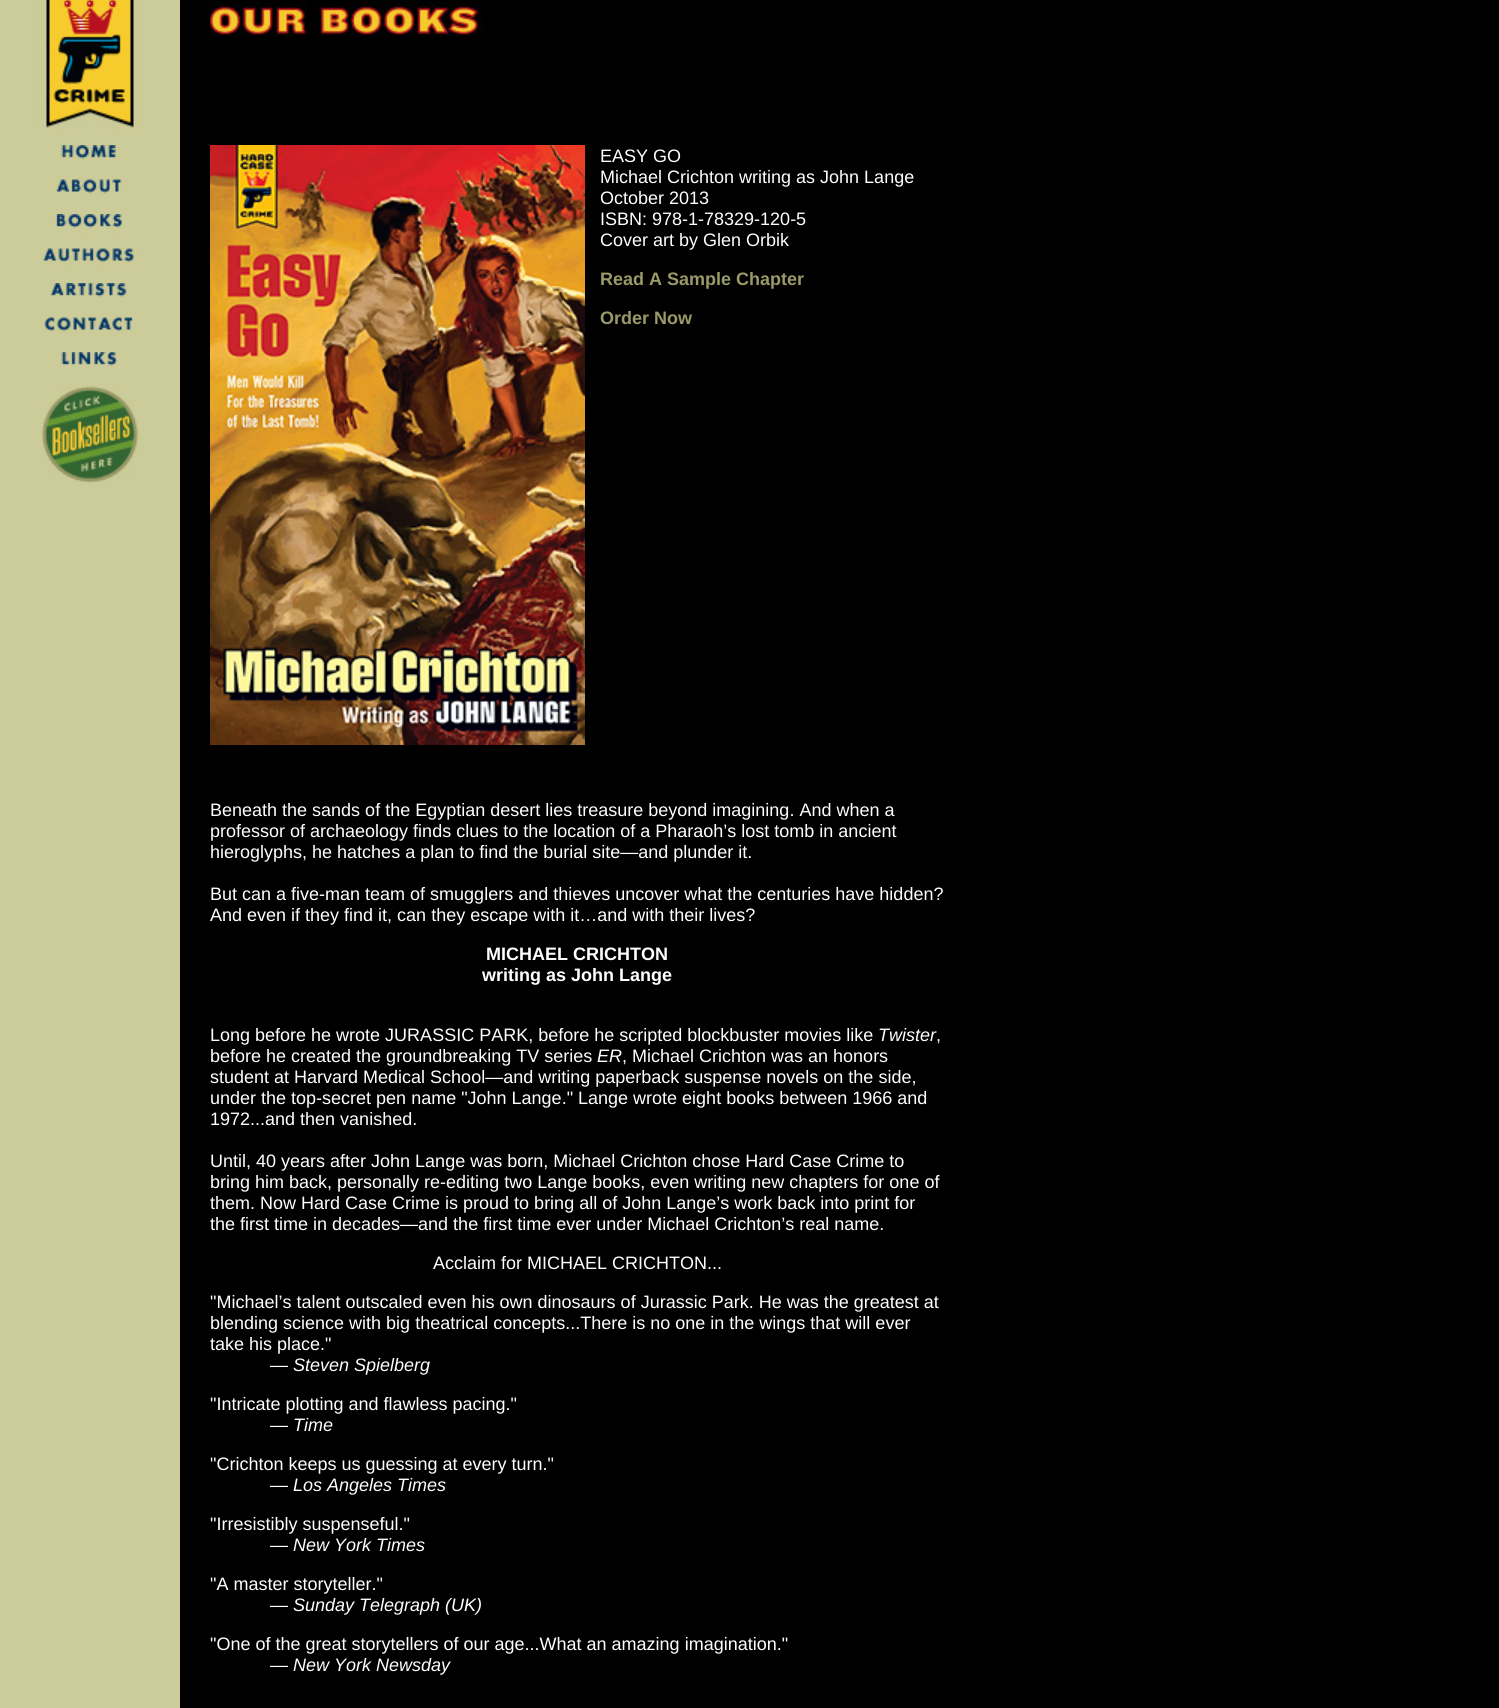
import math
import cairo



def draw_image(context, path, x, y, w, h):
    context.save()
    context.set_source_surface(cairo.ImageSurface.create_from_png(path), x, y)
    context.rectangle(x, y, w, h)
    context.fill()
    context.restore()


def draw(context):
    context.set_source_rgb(0, 0, 0)
    context.paint()
    draw_image(context, "images/1.png", 0, 0, 180, 145)
    draw_image(context, "images/2.png", 210, 1, 276, 36)
    context.set_source_rgb(204 / 255, 204 / 255, 154 / 255)
    context.rectangle(0, 159, 180, 1549)
    context.fill()
    draw_image(context, "images/3.png", 0, 145, 180, 14)
    draw_image(context, "images/4.png", 56, 179, 67, 15)
    draw_image(context, "images/5.png", 51, 214, 71, 21)
    draw_image(context, "images/6.png", 38, 248, 101, 20)
    draw_image(context, "images/7.png", 50, 283, 77, 15)
    draw_image(context, "images/8.png", 44, 317, 89, 15)
    draw_image(context, "images/9.png", 61, 352, 57, 15)
    draw_image(context, "images/10.png", 41, 386, 98, 97)
    draw_image(context, "images/11.png", 210, 145, 375, 600)
    context.select_font_face("Liberation Sans")
    context.set_font_size(18)
    context.set_source_rgb(1, 1, 1)
    context.move_to(600, 162)
    context.show_text("EASY GO")
    context.move_to(600, 183)
    context.show_text("Michael Crichton writing as John Lange")
    context.move_to(600, 204)
    context.show_text("October 2013")
    context.move_to(600, 225)
    context.show_text("ISBN: 978-1-78329-120-5")
    context.move_to(600, 246)
    context.show_text("Cover art by Glen Orbik")
    context.select_font_face("Liberation Sans", cairo.FontSlant.NORMAL, cairo.FontWeight.BOLD)
    context.set_source_rgb(154 / 255, 154 / 255, 104 / 255)
    context.move_to(600, 285)
    context.show_text("Read A Sample Chapter")
    context.move_to(600, 324)
    context.show_text("Order Now")
    context.select_font_face("Liberation Sans")
    context.set_source_rgb(1, 1, 1)
    context.move_to(210, 816)
    context.show_text("Beneath the sands of the Egyptian desert lies treasure beyond imagining. And when a")
    context.move_to(210, 837)
    context.show_text("professor of archaeology finds clues to the location of a Pharaoh’s lost tomb in ancient")
    context.move_to(210, 858)
    context.show_text("hieroglyphs, he hatches a plan to find the burial site—and plunder it.")
    context.move_to(210, 900)
    context.show_text("But can a five-man team of smugglers and thieves uncover what the centuries have hidden?")
    context.move_to(210, 921)
    context.show_text("And even if they find it, can they escape with it…and with their lives?")
    context.select_font_face("Liberation Sans", cairo.FontSlant.NORMAL, cairo.FontWeight.BOLD)
    context.move_to(486, 960)
    context.show_text("MICHAEL CRICHTON")
    context.move_to(482, 981)
    context.show_text("writing as John Lange")
    context.select_font_face("Liberation Sans")
    context.move_to(210, 1041)
    context.show_text("Long before he wrote JURASSIC PARK, before he scripted blockbuster movies like")
    context.select_font_face("Liberation Sans", cairo.FontSlant.ITALIC)
    context.move_to(878, 1041)
    context.show_text("Twister")
    context.select_font_face("Liberation Sans")
    context.move_to(936, 1041)
    context.show_text(",")
    context.move_to(210, 1062)
    context.show_text("before he created the groundbreaking TV series")
    context.select_font_face("Liberation Sans", cairo.FontSlant.ITALIC)
    context.move_to(597, 1062)
    context.show_text("ER")
    context.select_font_face("Liberation Sans")
    context.move_to(622, 1062)
    context.show_text(", Michael Crichton was an honors")
    context.move_to(210, 1083)
    context.show_text("student at Harvard Medical School—and writing paperback suspense novels on the side,")
    context.move_to(210, 1104)
    context.show_text("under the top-secret pen name \"John Lange.\" Lange wrote eight books between 1966 and")
    context.move_to(210, 1125)
    context.show_text("1972...and then vanished.")
    context.move_to(210, 1167)
    context.show_text("Until, 40 years after John Lange was born, Michael Crichton chose Hard Case Crime to")
    context.move_to(210, 1188)
    context.show_text("bring him back, personally re-editing two Lange books, even writing new chapters for one of")
    context.move_to(210, 1209)
    context.show_text("them. Now Hard Case Crime is proud to bring all of John Lange’s work back into print for")
    context.move_to(210, 1230)
    context.show_text("the first time in decades—and the first time ever under Michael Crichton’s real name.")
    context.move_to(433, 1269)
    context.show_text("Acclaim for MICHAEL CRICHTON...")
    context.move_to(210, 1308)
    context.show_text("\"Michael’s talent outscaled even his own dinosaurs of Jurassic Park. He was the greatest at")
    context.move_to(210, 1329)
    context.show_text("blending science with big theatrical concepts...There is no one in the wings that will ever")
    context.move_to(210, 1350)
    context.show_text("take his place.\"")
    context.move_to(270, 1371)
    context.show_text("—")
    context.select_font_face("Liberation Sans", cairo.FontSlant.ITALIC)
    context.move_to(293, 1371)
    context.show_text("Steven Spielberg")
    context.select_font_face("Liberation Sans")
    context.move_to(210, 1410)
    context.show_text("\"Intricate plotting and flawless pacing.\"")
    context.move_to(270, 1431)
    context.show_text("—")
    context.select_font_face("Liberation Sans", cairo.FontSlant.ITALIC)
    context.move_to(293, 1431)
    context.show_text("Time")
    context.select_font_face("Liberation Sans")
    context.move_to(210, 1470)
    context.show_text("\"Crichton keeps us guessing at every turn.\"")
    context.move_to(270, 1491)
    context.show_text("—")
    context.select_font_face("Liberation Sans", cairo.FontSlant.ITALIC)
    context.move_to(293, 1491)
    context.show_text("Los Angeles Times")
    context.select_font_face("Liberation Sans")
    context.move_to(210, 1530)
    context.show_text("\"Irresistibly suspenseful.\"")
    context.move_to(270, 1551)
    context.show_text("—")
    context.select_font_face("Liberation Sans", cairo.FontSlant.ITALIC)
    context.move_to(293, 1551)
    context.show_text("New York Times")
    context.select_font_face("Liberation Sans")
    context.move_to(210, 1590)
    context.show_text("\"A master storyteller.\"")
    context.move_to(270, 1611)
    context.show_text("—")
    context.select_font_face("Liberation Sans", cairo.FontSlant.ITALIC)
    context.move_to(293, 1611)
    context.show_text("Sunday Telegraph (UK)")
    context.select_font_face("Liberation Sans")
    context.move_to(210, 1650)
    context.show_text("\"One of the great storytellers of our age...What an amazing imagination.\"")
    context.move_to(270, 1671)
    context.show_text("—")
    context.select_font_face("Liberation Sans", cairo.FontSlant.ITALIC)
    context.move_to(293, 1671)
    context.show_text("New York Newsday")


surface = cairo.ImageSurface(cairo.Format.RGB24, 1499, 1708)
context = cairo.Context(surface)
options = cairo.FontOptions()
options.set_hint_metrics(cairo.HintMetrics.OFF)
options.set_hint_style(cairo.HintStyle.NONE)
context.set_font_options(options)
context.set_miter_limit(4)
draw(context)
surface.write_to_png("out.png")
